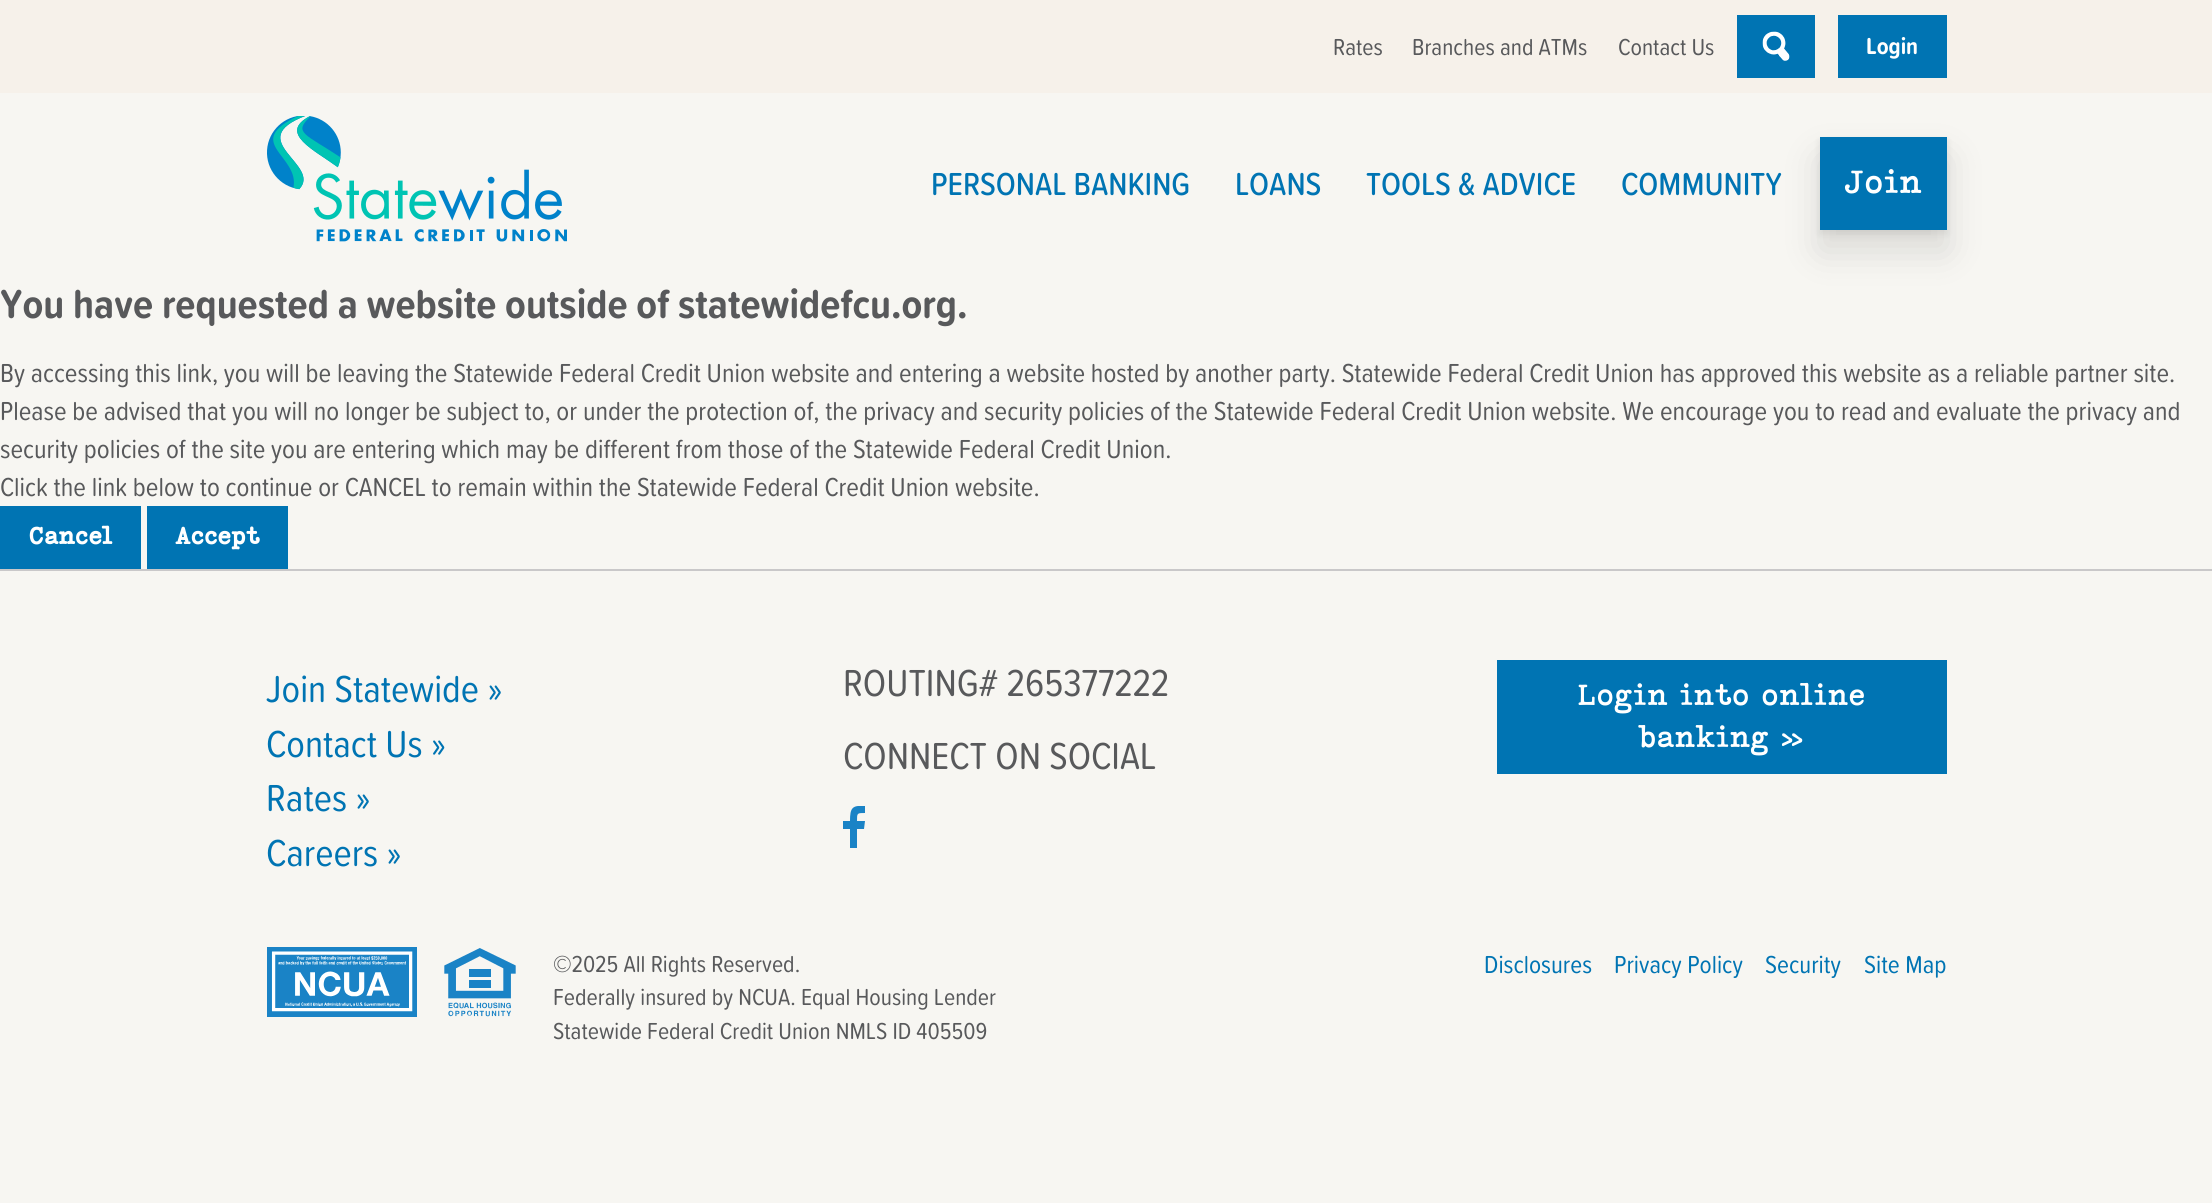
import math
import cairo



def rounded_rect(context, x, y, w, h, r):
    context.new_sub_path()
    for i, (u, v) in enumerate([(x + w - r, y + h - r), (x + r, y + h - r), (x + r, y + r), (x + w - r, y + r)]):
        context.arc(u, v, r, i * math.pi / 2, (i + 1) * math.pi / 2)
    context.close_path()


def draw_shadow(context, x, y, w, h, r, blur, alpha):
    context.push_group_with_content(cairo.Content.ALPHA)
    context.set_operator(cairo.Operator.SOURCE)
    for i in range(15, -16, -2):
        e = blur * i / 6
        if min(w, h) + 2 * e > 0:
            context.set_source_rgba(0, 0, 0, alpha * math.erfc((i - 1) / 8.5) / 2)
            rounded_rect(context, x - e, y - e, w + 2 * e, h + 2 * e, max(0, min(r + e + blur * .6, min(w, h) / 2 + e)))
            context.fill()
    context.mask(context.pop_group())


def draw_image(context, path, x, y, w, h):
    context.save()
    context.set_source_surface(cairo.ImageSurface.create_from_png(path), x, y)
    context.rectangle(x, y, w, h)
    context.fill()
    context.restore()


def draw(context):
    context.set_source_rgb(247 / 255, 246 / 255, 242 / 255)
    context.paint()
    context.set_source_rgb(246 / 255, 241 / 255, 234 / 255)
    context.rectangle(0, 0, 2212, 93)
    context.fill()
    context.set_source_rgb(0, 116 / 255, 179 / 255)
    context.rectangle(1737, 15, 78, 63)
    context.fill()
    draw_image(context, "images/1.png", 1762, 31, 28, 30)
    context.rectangle(1838, 15, 109, 63)
    context.fill()
    draw_image(context, "images/2.png", 267, 116, 300, 126)
    context.set_source_rgb(0, 0, 0)
    draw_shadow(context, 1820, 158, 127, 93, 0, 19, 0.12)
    draw_shadow(context, 1820, 141, 127, 93, 0, 4, 0.08)
    context.set_source_rgb(0, 116 / 255, 179 / 255)
    context.rectangle(1820, 137, 127, 93)
    context.fill()
    context.rectangle(0, 506, 141, 63)
    context.fill()
    context.rectangle(147, 506, 141, 63)
    context.fill()
    context.set_source_rgb(201 / 255, 200 / 255, 201 / 255)
    context.rectangle(0, 569, 2212, 2)
    context.fill()
    context.save()
    context.rectangle(843, 806, 23, 43)
    context.clip()
    context.set_source_rgb(26 / 255, 131 / 255, 198 / 255)
    context.new_path()
    context.move_to(864, 829)
    context.line_to(865, 821)
    context.line_to(857, 821)
    context.curve_to(857, 813, 857, 813, 865, 813)
    context.line_to(865, 806)
    context.curve_to(852, 805, 850, 808, 850, 821)
    context.line_to(843, 821)
    context.line_to(843, 829)
    context.line_to(850, 829)
    context.line_to(850, 848)
    context.line_to(857, 848)
    context.line_to(857, 829)
    context.close_path()
    context.fill()
    context.restore()
    context.set_source_rgb(0, 116 / 255, 179 / 255)
    context.rectangle(1497, 660, 450, 114)
    context.fill()
    draw_image(context, "images/3.png", 267, 947, 150, 70)
    draw_image(context, "images/4.png", 444, 948, 72, 69)
    context.select_font_face("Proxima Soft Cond")
    context.set_font_size(24)
    context.set_source_rgb(88 / 255, 89 / 255, 91 / 255)
    context.move_to(1333, 55)
    context.show_text("Rates")
    context.move_to(1412, 55)
    context.show_text("Branches and ATMs")
    context.move_to(1618, 55)
    context.show_text("Contact Us")
    context.select_font_face("Proxima Soft Cond", cairo.FontSlant.NORMAL, cairo.FontWeight.BOLD)
    context.set_source_rgb(1, 1, 1)
    context.move_to(1866, 54)
    context.show_text("Login")
    context.select_font_face("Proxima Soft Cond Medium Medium")
    context.set_font_size(33)
    context.set_source_rgb(0, 116 / 255, 179 / 255)
    context.move_to(931, 195)
    context.show_text("PERSONAL BANKING")
    context.move_to(1235, 195)
    context.show_text("LOANS")
    context.move_to(1366, 195)
    context.show_text("TOOLS & ADVICE")
    context.move_to(1621, 195)
    context.show_text("COMMUNITY")
    context.select_font_face("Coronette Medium")
    context.set_source_rgb(1, 1, 1)
    context.move_to(1844, 193)
    context.show_text("Join")
    context.select_font_face("Proxima Soft Cond", cairo.FontSlant.NORMAL, cairo.FontWeight.BOLD)
    context.set_font_size(42)
    context.set_source_rgb(88 / 255, 89 / 255, 91 / 255)
    context.move_to(0, 318)
    context.show_text("You have requested a website outside of statewidefcu.org.")
    context.select_font_face("Proxima Soft Cond")
    context.set_font_size(27)
    context.move_to(0, 382)
    context.show_text("By accessing this link, you will be leaving the Statewide Federal Credit Union website and entering a website hosted by another party. Statewide Federal Credit Union has approved this website as a reliable partner site.")
    context.move_to(0, 420)
    context.show_text("Please be advised that you will no longer be subject to, or under the protection of, the privacy and security policies of the Statewide Federal Credit Union website. We encourage you to read and evaluate the privacy and")
    context.move_to(0, 458)
    context.show_text("security policies of the site you are entering which may be different from those of the Statewide Federal Credit Union.")
    context.move_to(0, 496)
    context.show_text("Click the link below to continue or CANCEL to remain within the Statewide Federal Credit Union website.")
    context.select_font_face("Coronette", cairo.FontSlant.NORMAL, cairo.FontWeight.BOLD)
    context.set_font_size(24)
    context.set_source_rgb(1, 1, 1)
    context.move_to(29, 544)
    context.show_text("Cancel")
    context.move_to(175, 544)
    context.show_text("Accept")
    context.select_font_face("Proxima Soft Cond")
    context.set_font_size(39)
    context.set_source_rgb(0, 116 / 255, 179 / 255)
    context.move_to(266, 702)
    context.show_text("Join Statewide »")
    context.move_to(266, 757)
    context.show_text("Contact Us »")
    context.move_to(266, 811)
    context.show_text("Rates »")
    context.move_to(266, 866)
    context.show_text("Careers »")
    context.set_source_rgb(88 / 255, 89 / 255, 91 / 255)
    context.move_to(843, 696)
    context.show_text("ROUTING# 265377222")
    context.move_to(843, 769)
    context.show_text("CONNECT ON SOCIAL")
    context.select_font_face("Coronette Medium")
    context.set_font_size(30)
    context.set_source_rgb(1, 1, 1)
    context.move_to(1577, 705)
    context.show_text("Login into online")
    context.move_to(1638, 747)
    context.show_text("banking »")
    context.select_font_face("Proxima Soft Cond")
    context.set_font_size(24)
    context.set_source_rgb(88 / 255, 89 / 255, 91 / 255)
    context.move_to(553, 972)
    context.show_text("©2025 All Rights Reserved.")
    context.move_to(553, 1005)
    context.show_text("Federally insured by NCUA. Equal Housing Lender")
    context.move_to(553, 1039)
    context.show_text("Statewide Federal Credit Union NMLS ID 405509")
    context.set_font_size(25.5)
    context.set_source_rgb(0, 116 / 255, 179 / 255)
    context.move_to(1484, 973)
    context.show_text("Disclosures")
    context.move_to(1614, 973)
    context.show_text("Privacy Policy")
    context.move_to(1765, 973)
    context.show_text("Security")
    context.move_to(1864, 973)
    context.show_text("Site Map")


surface = cairo.ImageSurface(cairo.Format.RGB24, 2212, 1203)
context = cairo.Context(surface)
options = cairo.FontOptions()
options.set_hint_metrics(cairo.HintMetrics.OFF)
options.set_hint_style(cairo.HintStyle.NONE)
context.set_font_options(options)
context.set_miter_limit(4)
draw(context)
surface.write_to_png("out.png")
